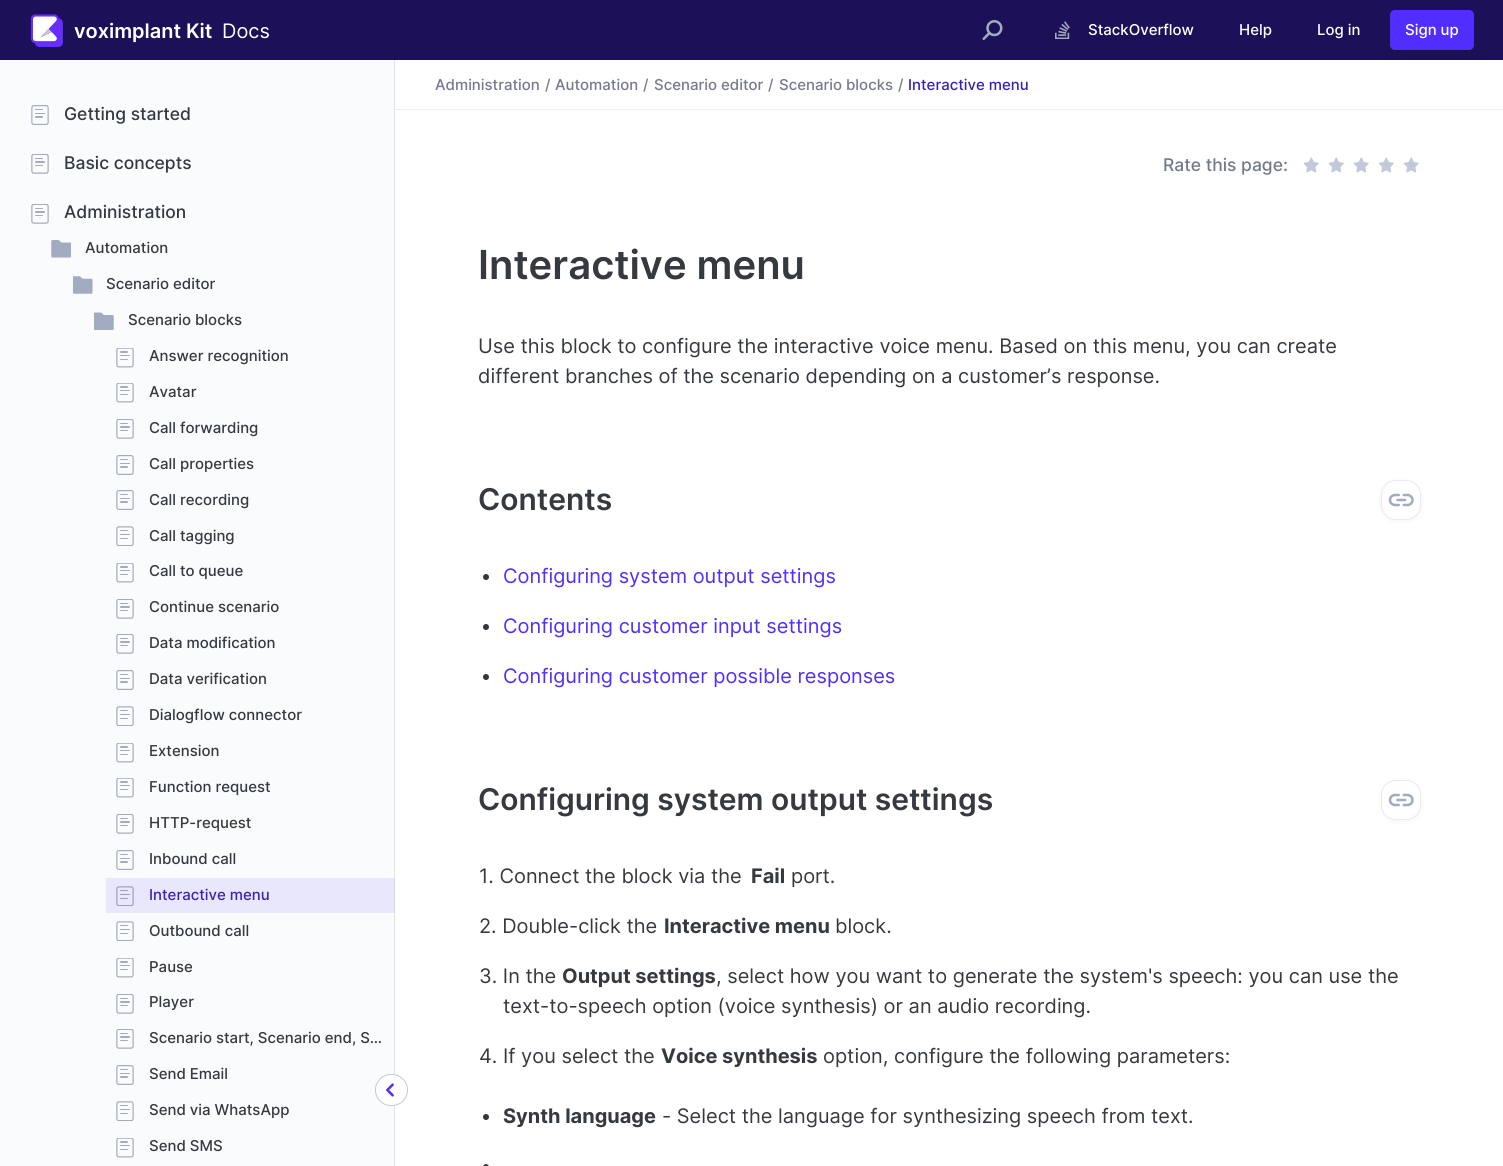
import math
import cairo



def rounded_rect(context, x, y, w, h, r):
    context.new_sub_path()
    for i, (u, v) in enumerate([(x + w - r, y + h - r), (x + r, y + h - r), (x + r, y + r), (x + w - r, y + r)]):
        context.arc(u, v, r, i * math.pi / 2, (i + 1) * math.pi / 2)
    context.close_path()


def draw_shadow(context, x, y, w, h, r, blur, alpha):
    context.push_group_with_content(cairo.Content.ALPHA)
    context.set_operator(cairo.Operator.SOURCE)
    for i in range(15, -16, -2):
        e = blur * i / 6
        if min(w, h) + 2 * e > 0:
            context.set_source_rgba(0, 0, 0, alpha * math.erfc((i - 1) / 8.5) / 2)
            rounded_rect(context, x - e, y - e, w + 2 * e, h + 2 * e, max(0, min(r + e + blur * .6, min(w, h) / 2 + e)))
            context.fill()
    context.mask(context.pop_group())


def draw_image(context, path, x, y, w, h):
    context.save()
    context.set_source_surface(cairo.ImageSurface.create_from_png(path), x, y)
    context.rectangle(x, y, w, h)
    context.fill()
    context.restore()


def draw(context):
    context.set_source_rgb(1, 1, 1)
    context.paint()
    context.set_source_rgb(28 / 255, 16 / 255, 89 / 255)
    context.rectangle(0, 0, 1503, 60)
    context.fill()
    draw_image(context, "images/1.png", 30, 14, 33, 33)
    draw_image(context, "images/2.png", 982, 20, 21, 20)
    draw_image(context, "images/3.png", 1055, 21, 15, 18)
    context.set_source_rgb(81 / 255, 46 / 255, 1)
    rounded_rect(context, 1390, 10, 84, 40, 5)
    context.fill()
    context.set_source_rgb(250 / 255, 251 / 255, 252 / 255)
    context.rectangle(0, 60, 394, 1106)
    context.fill()
    context.set_source_rgb(233 / 255, 231 / 255, 252 / 255)
    context.rectangle(106, 878, 288, 35)
    context.fill()
    context.set_source_rgb(226 / 255, 230 / 255, 234 / 255)
    context.rectangle(394, 60, 1, 1106)
    context.fill()
    context.set_source_rgb(212 / 255, 212 / 255, 236 / 255)
    context.rectangle(394, 878, 1, 35)
    context.fill()
    draw_image(context, "images/4.png", 31, 105, 18, 20)
    draw_image(context, "images/5.png", 31, 154, 18, 20)
    draw_image(context, "images/5.png", 31, 204, 18, 20)
    draw_image(context, "images/6.png", 51, 240, 20, 18)
    draw_image(context, "images/7.png", 73, 276, 20, 18)
    draw_image(context, "images/8.png", 94, 312, 20, 18)
    draw_image(context, "images/9.png", 116, 348, 18, 20)
    draw_image(context, "images/9.png", 116, 383, 18, 20)
    draw_image(context, "images/5.png", 116, 419, 18, 20)
    draw_image(context, "images/4.png", 116, 455, 18, 20)
    draw_image(context, "images/4.png", 116, 490, 18, 20)
    draw_image(context, "images/10.png", 116, 526, 18, 20)
    draw_image(context, "images/9.png", 116, 563, 18, 20)
    draw_image(context, "images/5.png", 116, 599, 18, 20)
    draw_image(context, "images/5.png", 116, 634, 18, 20)
    draw_image(context, "images/4.png", 116, 670, 18, 20)
    draw_image(context, "images/10.png", 116, 706, 18, 20)
    draw_image(context, "images/9.png", 116, 743, 18, 20)
    draw_image(context, "images/9.png", 116, 778, 18, 20)
    draw_image(context, "images/5.png", 116, 814, 18, 20)
    draw_image(context, "images/4.png", 116, 850, 18, 20)
    draw_image(context, "images/11.png", 116, 886, 18, 20)
    draw_image(context, "images/10.png", 116, 921, 18, 20)
    draw_image(context, "images/9.png", 116, 958, 18, 20)
    draw_image(context, "images/5.png", 116, 994, 18, 20)
    draw_image(context, "images/5.png", 116, 1029, 18, 20)
    draw_image(context, "images/4.png", 116, 1065, 18, 20)
    draw_image(context, "images/10.png", 116, 1101, 18, 20)
    draw_image(context, "images/9.png", 116, 1138, 18, 20)
    context.set_source_rgb(1, 1, 1)
    rounded_rect(context, 375.5, 1074.5, 32, 31, 15.5)
    context.fill_preserve()
    context.set_source_rgb(195 / 255, 201 / 255, 217 / 255)
    context.set_line_width(1)
    context.stroke()
    draw_image(context, "images/12.png", 386, 1083, 8, 14)
    context.set_source_rgb(235 / 255, 238 / 255, 242 / 255)
    context.rectangle(395, 109, 1108, 1)
    context.fill()
    draw_image(context, "images/13.png", 1303, 157, 16, 16)
    draw_image(context, "images/13.png", 1328, 157, 16, 16)
    draw_image(context, "images/13.png", 1353, 157, 16, 16)
    draw_image(context, "images/13.png", 1378, 157, 16, 16)
    draw_image(context, "images/13.png", 1403, 157, 16, 16)
    context.set_source_rgb(0, 0, 0)
    draw_shadow(context, 1381, 481, 40, 40, 15, 2.5, 0.05)
    context.set_source_rgb(1, 1, 1)
    rounded_rect(context, 1381.5, 480.5, 39, 39, 14.5)
    context.fill_preserve()
    context.set_source_rgb(230 / 255, 234 / 255, 242 / 255)
    context.stroke()
    draw_image(context, "images/14.png", 1388, 493, 26, 14)
    context.set_source_rgb(52 / 255, 55 / 255, 64 / 255)
    context.arc(486, 577, 3, 0, 2 * math.pi)
    context.fill()
    context.arc(486, 627, 3, 0, 2 * math.pi)
    context.fill()
    context.arc(486, 677, 3, 0, 2 * math.pi)
    context.fill()
    context.set_source_rgb(0, 0, 0)
    draw_shadow(context, 1381, 781, 40, 40, 15, 2.5, 0.05)
    context.set_source_rgb(1, 1, 1)
    rounded_rect(context, 1381.5, 780.5, 39, 39, 14.5)
    context.fill_preserve()
    context.set_source_rgb(230 / 255, 234 / 255, 242 / 255)
    context.stroke()
    draw_image(context, "images/14.png", 1388, 793, 26, 14)
    context.set_source_rgb(52 / 255, 55 / 255, 64 / 255)
    context.arc(486, 1117, 3, 0, 2 * math.pi)
    context.fill()
    context.new_path()
    context.move_to(486, 1164)
    context.curve_to(487.5, 1164, 489, 1165.5, 489, 1167)
    context.line_to(489, 1166)
    context.line_to(483, 1166)
    context.line_to(483, 1167)
    context.curve_to(483, 1165.5, 484.5, 1164, 486, 1164)
    context.close_path()
    context.fill()
    context.select_font_face("Inter SemiBold")
    context.set_font_size(20)
    context.set_source_rgb(1, 1, 1)
    context.move_to(74, 38)
    context.show_text("voximplant Kit")
    context.select_font_face("Inter")
    context.move_to(222, 38)
    context.show_text("Docs")
    context.select_font_face("Inter Medium")
    context.set_font_size(15)
    context.move_to(1088, 35)
    context.show_text("StackOverflow")
    context.move_to(1239, 35)
    context.show_text("Help")
    context.move_to(1317, 35)
    context.show_text("Log in")
    context.move_to(1405, 35)
    context.show_text("Sign up")
    context.set_font_size(17.5)
    context.set_source_rgb(52 / 255, 58 / 255, 64 / 255)
    context.move_to(64, 120)
    context.show_text("Getting started")
    context.move_to(64, 169)
    context.show_text("Basic concepts")
    context.move_to(64, 218)
    context.show_text("Administration")
    context.set_font_size(15)
    context.move_to(85, 253)
    context.show_text("Automation")
    context.move_to(106, 289)
    context.show_text("Scenario editor")
    context.move_to(128, 325)
    context.show_text("Scenario blocks")
    context.move_to(149, 361)
    context.show_text("Answer recognition")
    context.move_to(149, 397)
    context.show_text("Avatar")
    context.move_to(149, 433)
    context.show_text("Call forwarding")
    context.move_to(149, 469)
    context.show_text("Call properties")
    context.move_to(149, 505)
    context.show_text("Call recording")
    context.move_to(149, 541)
    context.show_text("Call tagging")
    context.move_to(149, 576)
    context.show_text("Call to queue")
    context.move_to(149, 612)
    context.show_text("Continue scenario")
    context.move_to(149, 648)
    context.show_text("Data modification")
    context.move_to(149, 684)
    context.show_text("Data verification")
    context.move_to(149, 720)
    context.show_text("Dialogflow connector")
    context.move_to(149, 756)
    context.show_text("Extension")
    context.move_to(149, 792)
    context.show_text("Function request")
    context.move_to(149, 828)
    context.show_text("HTTP-request")
    context.move_to(149, 864)
    context.show_text("Inbound call")
    context.set_source_rgb(59 / 255, 33 / 255, 186 / 255)
    context.move_to(149, 900)
    context.show_text("Interactive menu")
    context.set_source_rgb(52 / 255, 58 / 255, 64 / 255)
    context.move_to(149, 936)
    context.show_text("Outbound call")
    context.move_to(149, 972)
    context.show_text("Pause")
    context.move_to(149, 1007)
    context.show_text("Player")
    context.move_to(149, 1043)
    context.show_text("Scenario start, Scenario end, S…")
    context.move_to(149, 1079)
    context.show_text("Send Email")
    context.move_to(149, 1115)
    context.show_text("Send via WhatsApp")
    context.move_to(149, 1151)
    context.show_text("Send SMS")
    context.set_source_rgb(114 / 255, 122 / 255, 140 / 255)
    context.move_to(435, 90)
    context.show_text("Administration")
    context.move_to(545, 90)
    context.show_text("/")
    context.move_to(555, 90)
    context.show_text("Automation")
    context.move_to(643, 90)
    context.show_text("/")
    context.move_to(654, 90)
    context.show_text("Scenario editor")
    context.move_to(768, 90)
    context.show_text("/")
    context.move_to(779, 90)
    context.show_text("Scenario blocks")
    context.move_to(898, 90)
    context.show_text("/")
    context.set_source_rgb(57 / 255, 32 / 255, 178 / 255)
    context.move_to(908, 90)
    context.show_text("Interactive menu")
    context.set_font_size(17.5)
    context.set_source_rgb(114 / 255, 122 / 255, 140 / 255)
    context.move_to(1163, 171)
    context.show_text("Rate this page:")
    context.select_font_face("Inter SemiBold")
    context.set_font_size(40)
    context.set_source_rgb(52 / 255, 58 / 255, 64 / 255)
    context.move_to(478, 279)
    context.show_text("Interactive menu")
    context.select_font_face("Inter")
    context.set_font_size(20)
    context.move_to(478, 353)
    context.show_text("Use this block to configure the interactive voice menu. Based on this menu, you can create")
    context.move_to(478, 383)
    context.show_text("different branches of the scenario depending on a customer’s response.")
    context.select_font_face("Inter SemiBold")
    context.set_font_size(30)
    context.move_to(478, 510)
    context.show_text("Contents")
    context.select_font_face("Inter")
    context.set_font_size(20)
    context.set_source_rgb(81 / 255, 46 / 255, 1)
    context.move_to(503, 583)
    context.show_text("Configuring system output settings")
    context.move_to(503, 633)
    context.show_text("Configuring customer input settings")
    context.move_to(503, 683)
    context.show_text("Configuring customer possible responses")
    context.select_font_face("Inter SemiBold")
    context.set_font_size(30)
    context.set_source_rgb(52 / 255, 58 / 255, 64 / 255)
    context.move_to(478, 810)
    context.show_text("Configuring system output settings")
    context.select_font_face("Inter")
    context.set_font_size(20)
    context.move_to(479, 883)
    context.show_text("1. Connect the block via the")
    context.select_font_face("Inter", cairo.FontSlant.NORMAL, cairo.FontWeight.BOLD)
    context.move_to(751, 883)
    context.show_text("Fail")
    context.select_font_face("Inter")
    context.move_to(791, 883)
    context.show_text("port.")
    context.move_to(479, 933)
    context.show_text("2. Double-click the")
    context.select_font_face("Inter", cairo.FontSlant.NORMAL, cairo.FontWeight.BOLD)
    context.move_to(664, 933)
    context.show_text("Interactive menu")
    context.select_font_face("Inter")
    context.move_to(835, 933)
    context.show_text("block.")
    context.move_to(479, 983)
    context.show_text("3. In the")
    context.select_font_face("Inter", cairo.FontSlant.NORMAL, cairo.FontWeight.BOLD)
    context.move_to(562, 983)
    context.show_text("Output settings")
    context.select_font_face("Inter")
    context.move_to(716, 983)
    context.show_text(", select how you want to generate the system's speech: you can use the")
    context.move_to(503, 1013)
    context.show_text("text-to-speech option (voice synthesis) or an audio recording.")
    context.move_to(479, 1063)
    context.show_text("4. If you select the")
    context.select_font_face("Inter", cairo.FontSlant.NORMAL, cairo.FontWeight.BOLD)
    context.move_to(661, 1063)
    context.show_text("Voice synthesis")
    context.select_font_face("Inter")
    context.move_to(823, 1063)
    context.show_text("option, configure the following parameters:")
    context.select_font_face("Inter", cairo.FontSlant.NORMAL, cairo.FontWeight.BOLD)
    context.move_to(503, 1123)
    context.show_text("Synth language")
    context.select_font_face("Inter")
    context.move_to(662, 1123)
    context.show_text("- Select the language for synthesizing speech from text.")


surface = cairo.ImageSurface(cairo.Format.RGB24, 1503, 1166)
context = cairo.Context(surface)
options = cairo.FontOptions()
options.set_hint_metrics(cairo.HintMetrics.OFF)
options.set_hint_style(cairo.HintStyle.NONE)
context.set_font_options(options)
context.set_miter_limit(4)
draw(context)
surface.write_to_png("out.png")
